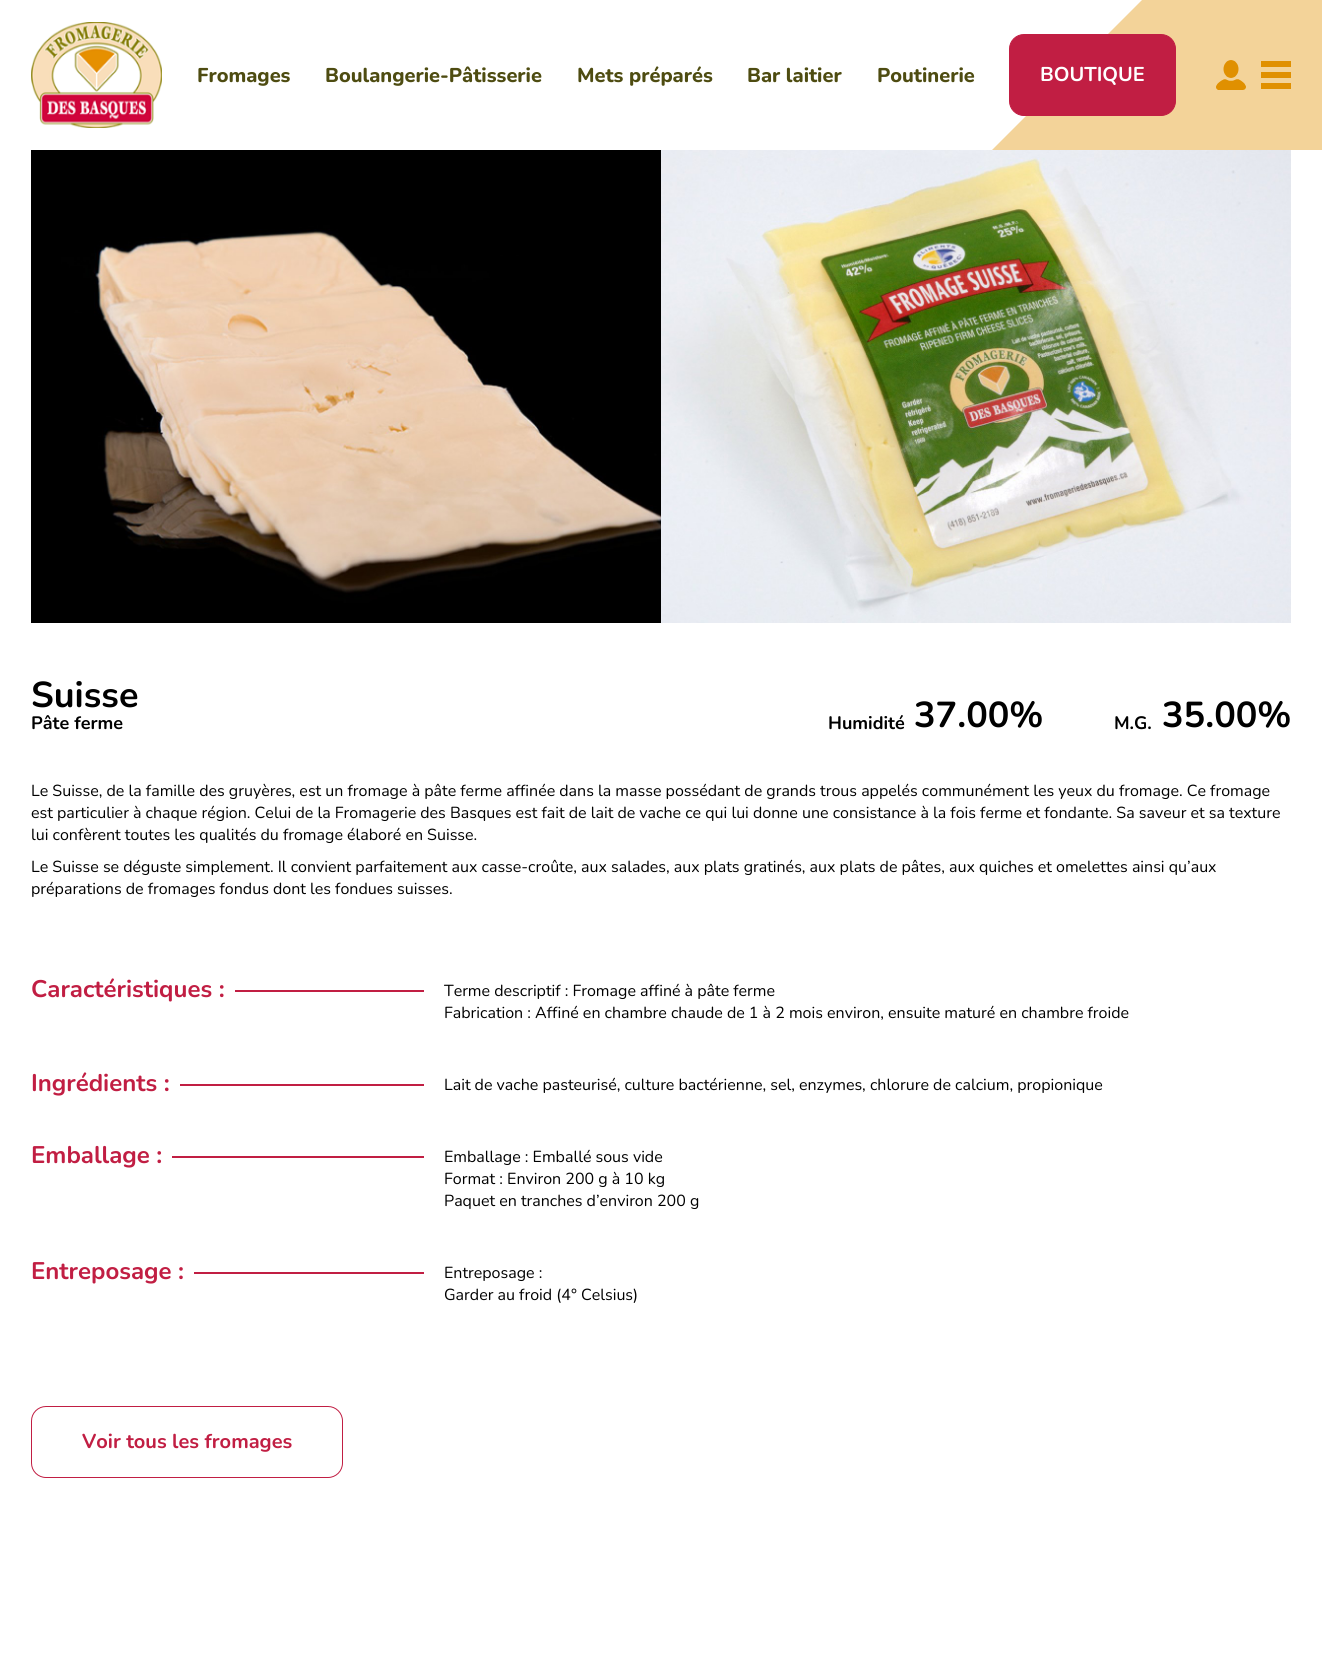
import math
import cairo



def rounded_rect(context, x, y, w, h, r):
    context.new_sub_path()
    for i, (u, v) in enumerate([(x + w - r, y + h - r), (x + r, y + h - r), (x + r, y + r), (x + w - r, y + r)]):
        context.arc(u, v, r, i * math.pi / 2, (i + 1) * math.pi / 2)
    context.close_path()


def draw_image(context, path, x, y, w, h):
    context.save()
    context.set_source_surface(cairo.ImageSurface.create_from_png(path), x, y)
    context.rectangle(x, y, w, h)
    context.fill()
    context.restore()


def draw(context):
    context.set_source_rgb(1, 1, 1)
    context.paint()
    draw_image(context, "images/1.png", 31, 22, 131, 106)
    context.set_source_rgb(243 / 255, 211 / 255, 153 / 255)
    context.new_path()
    context.move_to(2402, 150)
    context.line_to(992, 150)
    context.line_to(1142, 0)
    context.line_to(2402, 0)
    context.close_path()
    context.fill()
    context.set_source_rgb(193 / 255, 30 / 255, 67 / 255)
    rounded_rect(context, 1009.5, 34.5, 166, 81, 14.5)
    context.fill_preserve()
    context.set_line_width(1)
    context.stroke()
    draw_image(context, "images/2.png", 1216, 60, 30, 30)
    context.set_source_rgb(224 / 255, 144 / 255, 0)
    context.rectangle(1261, 61, 30, 6)
    context.fill()
    context.rectangle(1261, 72, 30, 6)
    context.fill()
    context.rectangle(1261, 83, 30, 6)
    context.fill()
    draw_image(context, "images/3.png", 31, 150, 630, 473)
    draw_image(context, "images/4.png", 661, 150, 630, 473)
    context.set_source_rgb(193 / 255, 30 / 255, 67 / 255)
    context.rectangle(235, 990, 189, 2)
    context.fill()
    context.rectangle(180, 1084, 244, 2)
    context.fill()
    context.rectangle(172, 1156, 252, 2)
    context.fill()
    context.rectangle(194, 1272, 230, 2)
    context.fill()
    rounded_rect(context, 31.5, 1406.5, 311, 71, 14.5)
    context.stroke()
    context.select_font_face("Nunito ExtraBold")
    context.set_font_size(20)
    context.set_source_rgb(78 / 255, 76 / 255, 17 / 255)
    context.move_to(325, 82)
    context.show_text("Boulangerie-Pâtisserie")
    context.move_to(577, 82)
    context.show_text("Mets préparés")
    context.move_to(197, 82)
    context.show_text("Fromages")
    context.move_to(747, 82)
    context.show_text("Bar laitier")
    context.move_to(877, 82)
    context.show_text("Poutinerie")
    context.select_font_face("Nunito", cairo.FontSlant.NORMAL, cairo.FontWeight.BOLD)
    context.set_source_rgb(1, 1, 1)
    context.move_to(1040, 81)
    context.show_text("BOUTIQUE")
    context.set_font_size(36)
    context.set_source_rgb(0, 0, 0)
    context.move_to(31, 707)
    context.show_text("Suisse")
    context.set_font_size(18)
    context.move_to(31, 729)
    context.show_text("Pâte ferme")
    context.move_to(828, 729)
    context.show_text("Humidité")
    context.set_font_size(36)
    context.move_to(914, 727)
    context.show_text("37.00%")
    context.set_font_size(18)
    context.move_to(1114, 729)
    context.show_text("M.G.")
    context.set_font_size(36)
    context.move_to(1162, 727)
    context.show_text("35.00%")
    context.select_font_face("Nunito")
    context.set_font_size(16)
    context.move_to(31, 796)
    context.show_text("Le Suisse, de la famille des gruyères, est un fromage à pâte ferme affinée dans la masse possédant de grands trous appelés communément les yeux du fromage. Ce fromage")
    context.move_to(31, 818)
    context.show_text("est particulier à chaque région. Celui de la Fromagerie des Basques est fait de lait de vache ce qui lui donne une consistance à la fois ferme et fondante. Sa saveur et sa texture")
    context.move_to(31, 840)
    context.show_text("lui confèrent toutes les qualités du fromage élaboré en Suisse.")
    context.move_to(31, 872)
    context.show_text("Le Suisse se déguste simplement. Il convient parfaitement aux casse-croûte, aux salades, aux plats gratinés, aux plats de pâtes, aux quiches et omelettes ainsi qu’aux")
    context.move_to(31, 894)
    context.show_text("préparations de fromages fondus dont les fondues suisses.")
    context.select_font_face("Nunito", cairo.FontSlant.NORMAL, cairo.FontWeight.BOLD)
    context.set_font_size(24)
    context.set_source_rgb(193 / 255, 30 / 255, 67 / 255)
    context.move_to(31, 997)
    context.show_text("Caractéristiques :")
    context.select_font_face("Nunito")
    context.set_font_size(16)
    context.set_source_rgb(0, 0, 0)
    context.move_to(444, 996)
    context.show_text("Terme descriptif : Fromage affiné à pâte ferme")
    context.move_to(444, 1018)
    context.show_text("Fabrication : Affiné en chambre chaude de 1 à 2 mois environ, ensuite maturé en chambre froide")
    context.select_font_face("Nunito", cairo.FontSlant.NORMAL, cairo.FontWeight.BOLD)
    context.set_font_size(24)
    context.set_source_rgb(193 / 255, 30 / 255, 67 / 255)
    context.move_to(31, 1091)
    context.show_text("Ingrédients :")
    context.select_font_face("Nunito")
    context.set_font_size(16)
    context.set_source_rgb(0, 0, 0)
    context.move_to(444, 1090)
    context.show_text("Lait de vache pasteurisé, culture bactérienne, sel, enzymes, chlorure de calcium, propionique")
    context.select_font_face("Nunito", cairo.FontSlant.NORMAL, cairo.FontWeight.BOLD)
    context.set_font_size(24)
    context.set_source_rgb(193 / 255, 30 / 255, 67 / 255)
    context.move_to(31, 1163)
    context.show_text("Emballage :")
    context.select_font_face("Nunito")
    context.set_font_size(16)
    context.set_source_rgb(0, 0, 0)
    context.move_to(444, 1162)
    context.show_text("Emballage : Emballé sous vide")
    context.move_to(444, 1184)
    context.show_text("Format : Environ 200 g à 10 kg")
    context.move_to(444, 1206)
    context.show_text("Paquet en tranches d’environ 200 g")
    context.select_font_face("Nunito", cairo.FontSlant.NORMAL, cairo.FontWeight.BOLD)
    context.set_font_size(24)
    context.set_source_rgb(193 / 255, 30 / 255, 67 / 255)
    context.move_to(31, 1279)
    context.show_text("Entreposage :")
    context.select_font_face("Nunito")
    context.set_font_size(16)
    context.set_source_rgb(0, 0, 0)
    context.move_to(444, 1278)
    context.show_text("Entreposage :")
    context.move_to(444, 1300)
    context.show_text("Garder au froid (4° Celsius)")
    context.select_font_face("Nunito", cairo.FontSlant.NORMAL, cairo.FontWeight.BOLD)
    context.set_font_size(20)
    context.set_source_rgb(193 / 255, 30 / 255, 67 / 255)
    context.move_to(82, 1448)
    context.show_text("Voir tous les fromages")


surface = cairo.ImageSurface(cairo.Format.RGB24, 1322, 1655)
context = cairo.Context(surface)
options = cairo.FontOptions()
options.set_hint_metrics(cairo.HintMetrics.OFF)
options.set_hint_style(cairo.HintStyle.NONE)
context.set_font_options(options)
context.set_miter_limit(4)
draw(context)
surface.write_to_png("out.png")
